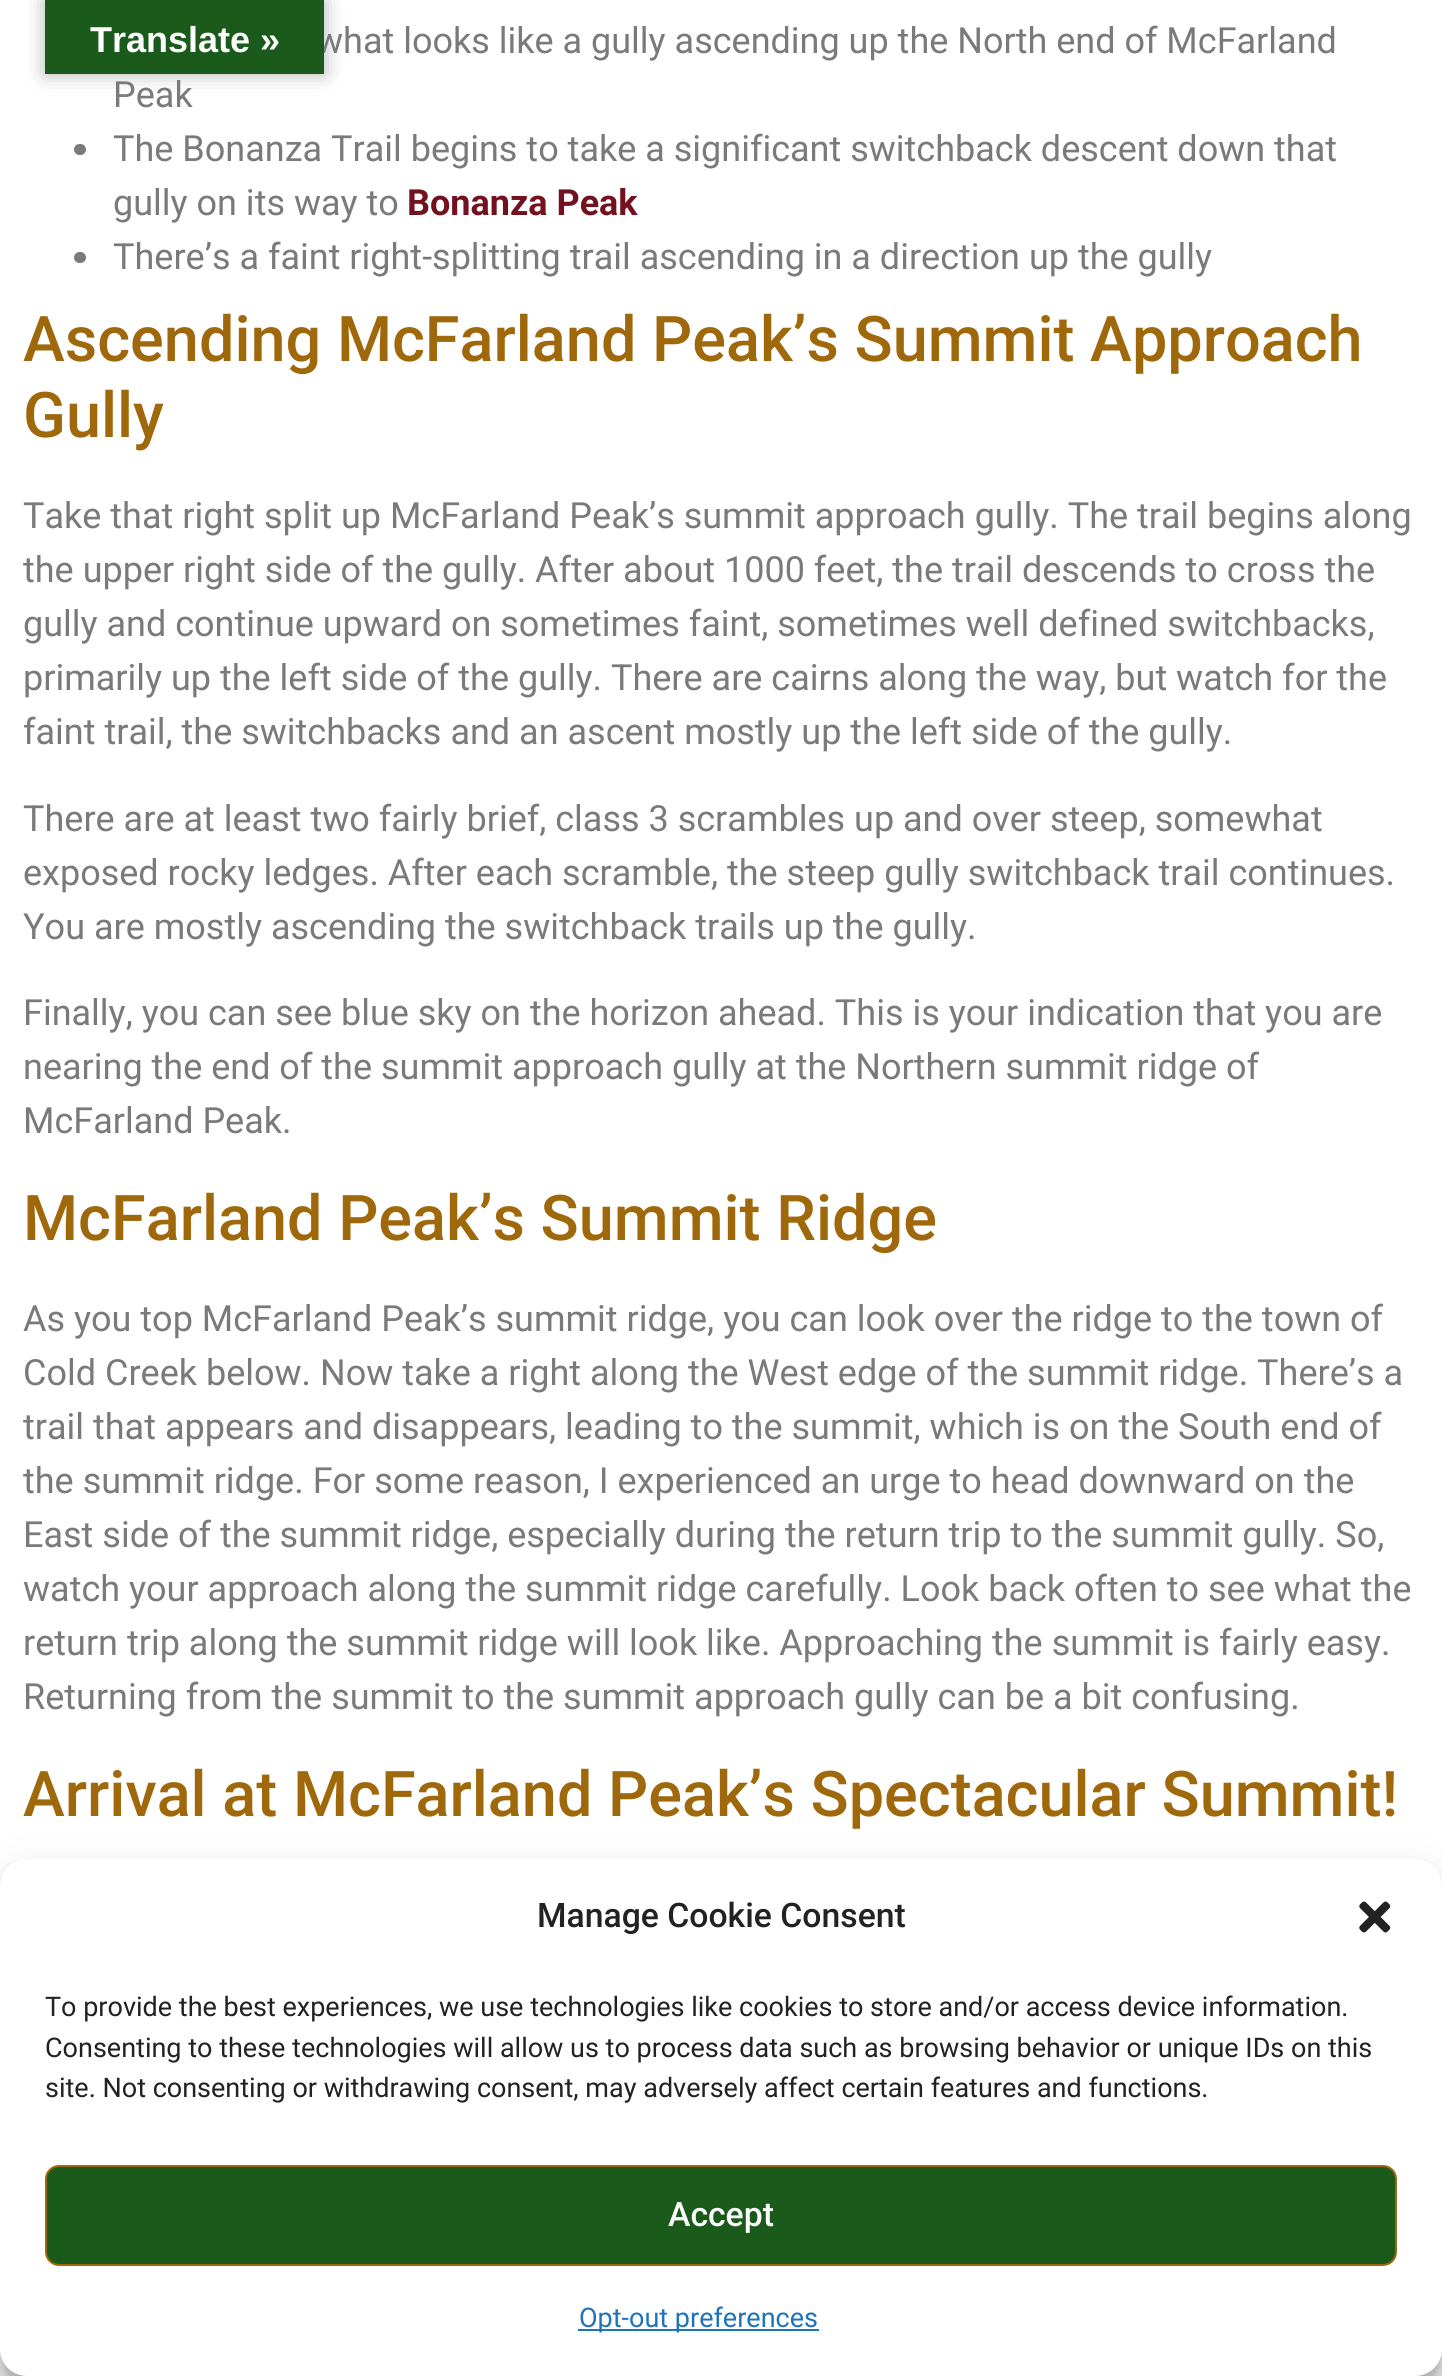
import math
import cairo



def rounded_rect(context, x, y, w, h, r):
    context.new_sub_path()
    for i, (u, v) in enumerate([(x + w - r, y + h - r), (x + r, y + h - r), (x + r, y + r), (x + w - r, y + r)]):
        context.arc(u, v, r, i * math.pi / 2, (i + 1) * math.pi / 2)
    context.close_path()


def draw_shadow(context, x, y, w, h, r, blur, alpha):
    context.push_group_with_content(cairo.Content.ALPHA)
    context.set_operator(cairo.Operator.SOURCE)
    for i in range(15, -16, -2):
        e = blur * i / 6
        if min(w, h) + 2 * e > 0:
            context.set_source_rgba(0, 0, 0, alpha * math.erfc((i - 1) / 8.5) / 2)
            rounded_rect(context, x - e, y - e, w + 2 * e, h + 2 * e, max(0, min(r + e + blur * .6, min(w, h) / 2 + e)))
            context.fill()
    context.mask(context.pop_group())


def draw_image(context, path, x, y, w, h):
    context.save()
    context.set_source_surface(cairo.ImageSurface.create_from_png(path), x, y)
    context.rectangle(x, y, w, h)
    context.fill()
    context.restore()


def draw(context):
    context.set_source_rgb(1, 1, 1)
    context.paint()
    context.set_source_rgb(122 / 255, 122 / 255, 122 / 255)
    rounded_rect(context, 74, 144, 12, 11, 5.5)
    context.fill()
    rounded_rect(context, 74, 252, 12, 11, 5.5)
    context.fill()
    context.set_source_rgb(0, 0, 0)
    draw_shadow(context, 45, 0, 279, 74, 0, 10, 0.3)
    draw_shadow(context, 0, 1872, 1442, 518, 27, 7, 0.23)
    draw_shadow(context, 0, 1881, 1442, 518, 27, 22.5, 0.19)
    context.set_source_rgb(1, 1, 1)
    rounded_rect(context, 0, 1859, 1442, 517, 27)
    context.fill()
    draw_image(context, "images/1.png", 1359, 1901, 32, 32)
    context.set_source_rgb(26 / 255, 90 / 255, 26 / 255)
    rounded_rect(context, 46, 2166, 1350, 99, 13)
    context.fill_preserve()
    context.set_source_rgb(159 / 255, 104 / 255, 11 / 255)
    context.stroke()
    context.set_source_rgb(30 / 255, 115 / 255, 190 / 255)
    context.rectangle(578, 2329, 241, 2)
    context.fill()
    context.select_font_face("Roboto")
    context.set_font_size(36)
    context.set_source_rgb(122 / 255, 122 / 255, 122 / 255)
    context.move_to(316, 53)
    context.show_text("what looks like a gully ascending up the North end of McFarland")
    context.move_to(113, 107)
    context.show_text("Peak")
    context.move_to(113, 161)
    context.show_text("The Bonanza Trail begins to take a significant switchback descent down that")
    context.move_to(113, 215)
    context.show_text("gully on its way to")
    context.select_font_face("Roboto", cairo.FontSlant.NORMAL, cairo.FontWeight.BOLD)
    context.set_source_rgb(115 / 255, 17 / 255, 30 / 255)
    context.move_to(407, 215)
    context.show_text("Bonanza Peak")
    context.select_font_face("Roboto")
    context.set_source_rgb(122 / 255, 122 / 255, 122 / 255)
    context.move_to(113, 269)
    context.show_text("There’s a faint right-splitting trail ascending in a direction up the gully")
    context.select_font_face("Roboto Medium")
    context.set_font_size(63)
    context.set_source_rgb(159 / 255, 104 / 255, 11 / 255)
    context.move_to(23, 361)
    context.show_text("Ascending McFarland Peak’s Summit Approach")
    context.move_to(23, 437)
    context.show_text("Gully")
    context.select_font_face("Roboto")
    context.set_font_size(36)
    context.set_source_rgb(122 / 255, 122 / 255, 122 / 255)
    context.move_to(23, 528)
    context.show_text("Take that right split up McFarland Peak’s summit approach gully. The trail begins along")
    context.move_to(23, 582)
    context.show_text("the upper right side of the gully. After about 1000 feet, the trail descends to cross the")
    context.move_to(23, 636)
    context.show_text("gully and continue upward on sometimes faint, sometimes well defined switchbacks,")
    context.move_to(23, 690)
    context.show_text("primarily up the left side of the gully. There are cairns along the way, but watch for the")
    context.move_to(23, 744)
    context.show_text("faint trail, the switchbacks and an ascent mostly up the left side of the gully.")
    context.move_to(23, 831)
    context.show_text("There are at least two fairly brief, class 3 scrambles up and over steep, somewhat")
    context.move_to(23, 885)
    context.show_text("exposed rocky ledges. After each scramble, the steep gully switchback trail continues.")
    context.move_to(23, 939)
    context.show_text("You are mostly ascending the switchback trails up the gully.")
    context.move_to(23, 1025)
    context.show_text("Finally, you can see blue sky on the horizon ahead. This is your indication that you are")
    context.move_to(23, 1079)
    context.show_text("nearing the end of the summit approach gully at the Northern summit ridge of")
    context.move_to(23, 1133)
    context.show_text("McFarland Peak.")
    context.select_font_face("Roboto Medium")
    context.set_font_size(63)
    context.set_source_rgb(159 / 255, 104 / 255, 11 / 255)
    context.move_to(23, 1240)
    context.show_text("McFarland Peak’s Summit Ridge")
    context.select_font_face("Roboto")
    context.set_font_size(36)
    context.set_source_rgb(122 / 255, 122 / 255, 122 / 255)
    context.move_to(23, 1331)
    context.show_text("As you top McFarland Peak’s summit ridge, you can look over the ridge to the town of")
    context.move_to(23, 1385)
    context.show_text("Cold Creek below. Now take a right along the West edge of the summit ridge. There’s a")
    context.move_to(23, 1439)
    context.show_text("trail that appears and disappears, leading to the summit, which is on the South end of")
    context.move_to(23, 1493)
    context.show_text("the summit ridge. For some reason, I experienced an urge to head downward on the")
    context.move_to(23, 1547)
    context.show_text("East side of the summit ridge, especially during the return trip to the summit gully. So,")
    context.move_to(23, 1601)
    context.show_text("watch your approach along the summit ridge carefully. Look back often to see what the")
    context.move_to(23, 1655)
    context.show_text("return trip along the summit ridge will look like. Approaching the summit is fairly easy.")
    context.move_to(23, 1709)
    context.show_text("Returning from the summit to the summit approach gully can be a bit confusing.")
    context.select_font_face("Roboto Medium")
    context.set_font_size(63)
    context.set_source_rgb(159 / 255, 104 / 255, 11 / 255)
    context.move_to(23, 1816)
    context.show_text("Arrival at McFarland Peak’s Spectacular Summit!")
    context.set_source_rgb(26 / 255, 90 / 255, 26 / 255)
    context.rectangle(45, 0, 279, 74)
    context.fill()
    context.select_font_face("Liberation Sans", cairo.FontSlant.NORMAL, cairo.FontWeight.BOLD)
    context.set_font_size(36)
    context.set_source_rgb(1, 1, 1)
    context.move_to(90, 52)
    context.show_text("Translate »")
    context.select_font_face("Roboto Medium")
    context.set_font_size(33.75)
    context.set_source_rgb(34 / 255, 34 / 255, 34 / 255)
    context.move_to(537, 1927)
    context.show_text("Manage Cookie Consent")
    context.select_font_face("Roboto")
    context.set_font_size(27)
    context.move_to(45, 2016)
    context.show_text("To provide the best experiences, we use technologies like cookies to store and/or access device information.")
    context.move_to(45, 2057)
    context.show_text("Consenting to these technologies will allow us to process data such as browsing behavior or unique IDs on this")
    context.move_to(45, 2097)
    context.show_text("site. Not consenting or withdrawing consent, may adversely affect certain features and functions.")
    context.select_font_face("Roboto Medium")
    context.set_font_size(33.75)
    context.set_source_rgb(1, 1, 1)
    context.move_to(668, 2226)
    context.show_text("Accept")
    context.select_font_face("Roboto")
    context.set_font_size(27)
    context.set_source_rgb(30 / 255, 115 / 255, 190 / 255)
    context.move_to(579, 2327)
    context.show_text("Opt-out preferences")


surface = cairo.ImageSurface(cairo.Format.RGB24, 1442, 2376)
context = cairo.Context(surface)
options = cairo.FontOptions()
options.set_hint_metrics(cairo.HintMetrics.OFF)
options.set_hint_style(cairo.HintStyle.NONE)
context.set_font_options(options)
context.set_miter_limit(4)
draw(context)
surface.write_to_png("out.png")
